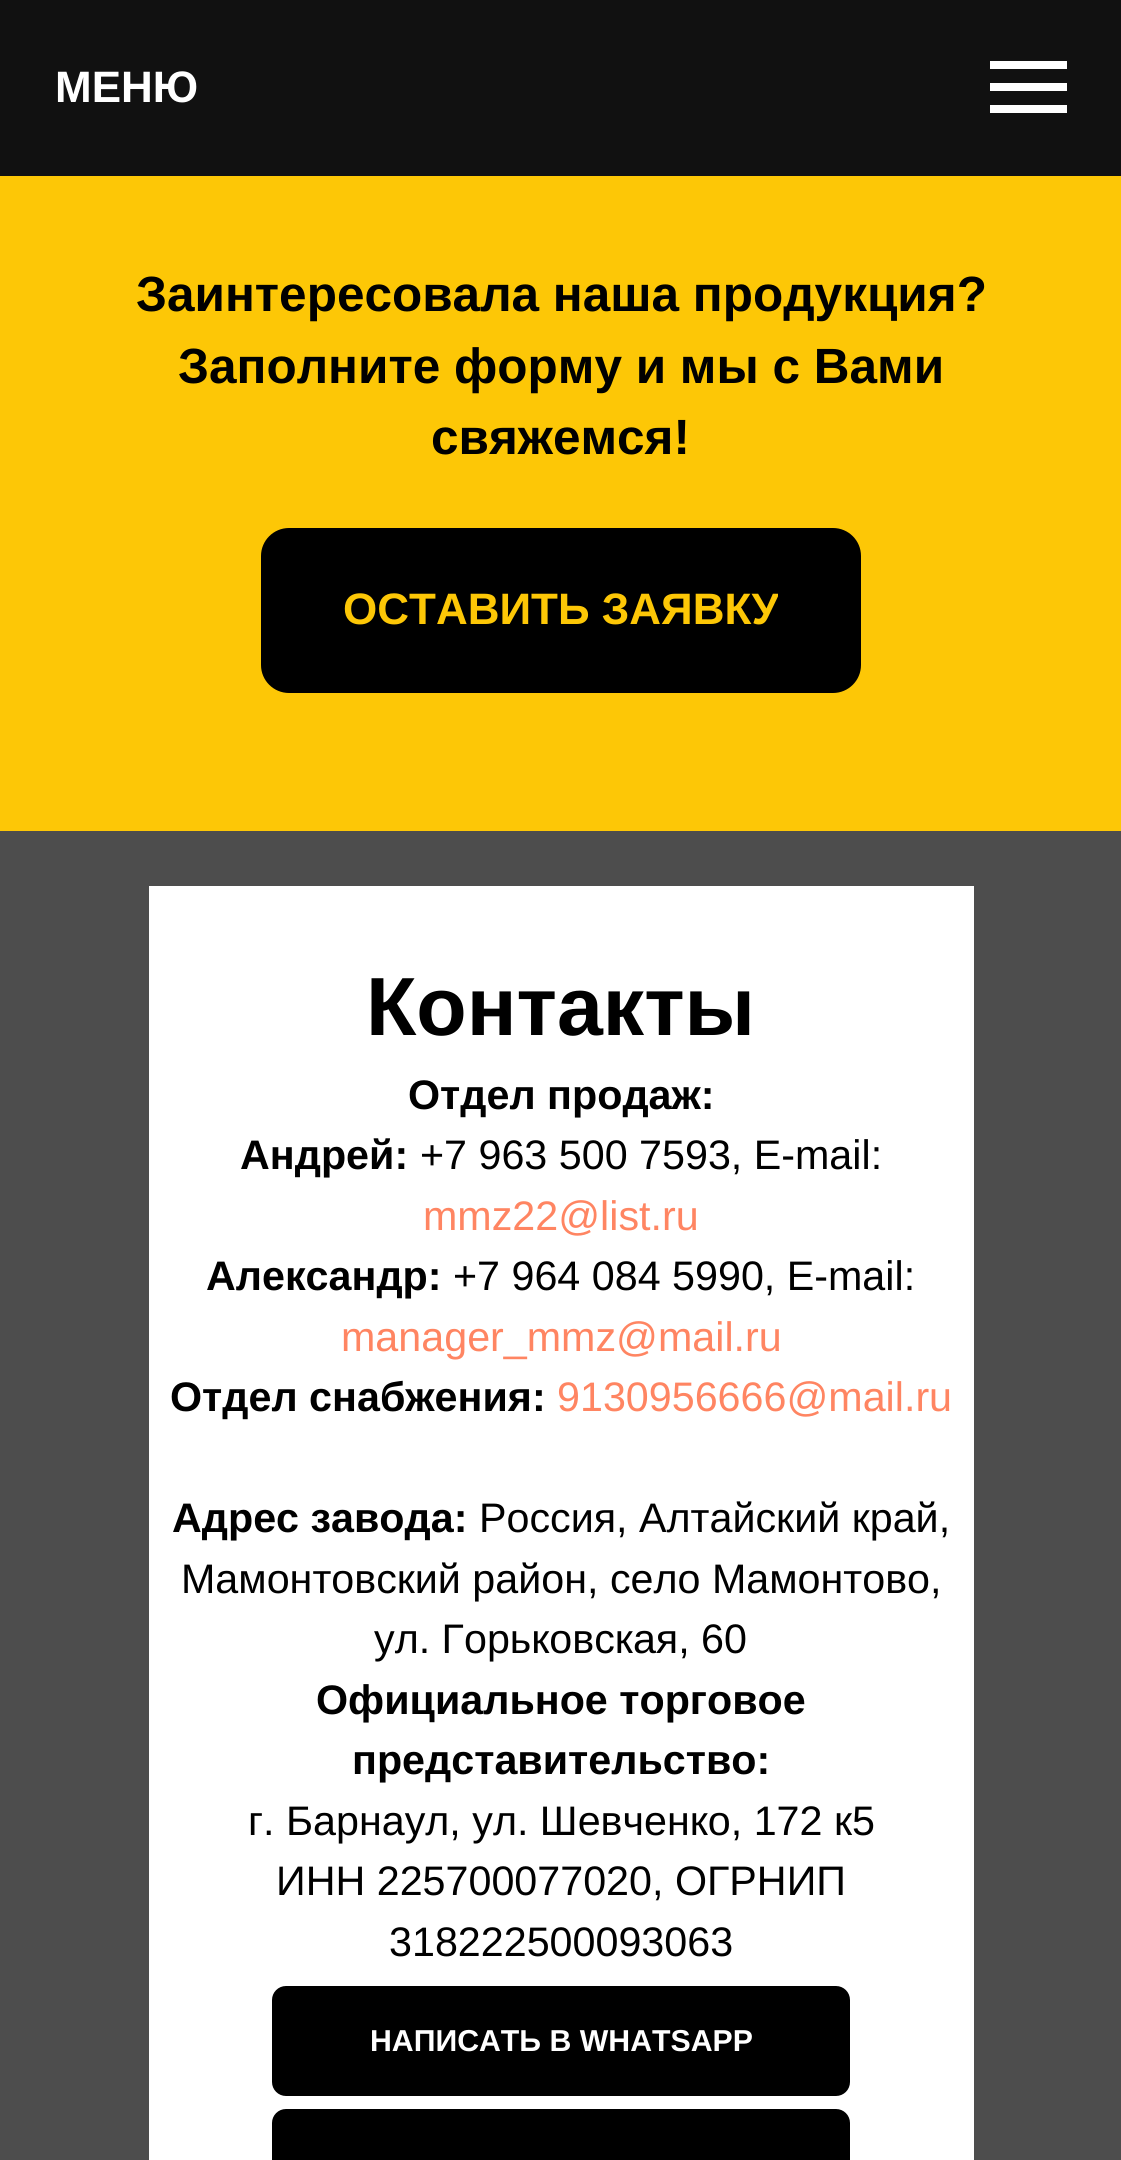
import math
import cairo



def rounded_rect(context, x, y, w, h, r):
    context.new_sub_path()
    for i, (u, v) in enumerate([(x + w - r, y + h - r), (x + r, y + h - r), (x + r, y + r), (x + w - r, y + r)]):
        context.arc(u, v, r, i * math.pi / 2, (i + 1) * math.pi / 2)
    context.close_path()


def draw(context):
    context.set_source_rgb(17 / 255, 17 / 255, 17 / 255)
    context.paint()
    context.set_source_rgb(1, 1, 1)
    context.rectangle(990, 61, 77, 8)
    context.fill()
    context.rectangle(990, 83, 77, 8)
    context.fill()
    context.rectangle(990, 105, 77, 8)
    context.fill()
    context.set_source_rgb(253 / 255, 199 / 255, 6 / 255)
    context.rectangle(0, 176, 1121, 655)
    context.fill()
    context.set_source_rgb(0, 0, 0)
    rounded_rect(context, 261, 528, 600, 165, 28)
    context.fill()
    context.set_source_rgb(77 / 255, 77 / 255, 77 / 255)
    context.rectangle(0, 831, 1121, 1329)
    context.fill()
    context.set_source_rgb(1, 1, 1)
    context.rectangle(149, 886, 825, 1274)
    context.fill()
    context.set_source_rgb(0, 0, 0)
    rounded_rect(context, 272, 1986, 578, 110, 14)
    context.fill()
    rounded_rect(context, 272, 2109, 578, 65, 14)
    context.fill()
    context.select_font_face("Liberation Sans", cairo.FontSlant.NORMAL, cairo.FontWeight.BOLD)
    context.set_font_size(44)
    context.set_source_rgb(1, 1, 1)
    context.move_to(55, 102)
    context.show_text("МЕНЮ")
    context.set_font_size(49.5)
    context.set_source_rgb(0, 0, 0)
    context.move_to(136, 311)
    context.show_text("Заинтересовала наша продукция?")
    context.move_to(178, 383)
    context.show_text("Заполните форму и мы с Вами")
    context.move_to(431, 454)
    context.show_text("свяжемся!")
    context.save()
    context.rectangle(344, 580, 434, 61)
    context.clip()
    context.set_font_size(44)
    context.set_source_rgb(253 / 255, 199 / 255, 6 / 255)
    context.move_to(343, 624)
    context.show_text("ОСТАВИТЬ ЗАЯВКУ")
    context.restore()
    context.set_font_size(82.5)
    context.move_to(366, 1035)
    context.show_text("Контакты")
    context.set_font_size(41.25)
    context.move_to(408, 1109)
    context.show_text("Отдел продаж:")
    context.move_to(240, 1169)
    context.show_text("Андрей:")
    context.select_font_face("Liberation Sans")
    context.move_to(420, 1169)
    context.show_text("+7 963 500 7593, E-mail:")
    context.set_source_rgb(1, 133 / 255, 98 / 255)
    context.move_to(423, 1230)
    context.show_text("mmz22@list.ru")
    context.select_font_face("Liberation Sans", cairo.FontSlant.NORMAL, cairo.FontWeight.BOLD)
    context.set_source_rgb(0, 0, 0)
    context.move_to(206, 1290)
    context.show_text("Александр:")
    context.select_font_face("Liberation Sans")
    context.move_to(453, 1290)
    context.show_text("+7 964 084 5990, E-mail:")
    context.set_source_rgb(1, 133 / 255, 98 / 255)
    context.move_to(341, 1351)
    context.show_text("manager_mmz@mail.ru")
    context.select_font_face("Liberation Sans", cairo.FontSlant.NORMAL, cairo.FontWeight.BOLD)
    context.set_source_rgb(0, 0, 0)
    context.move_to(170, 1411)
    context.show_text("Отдел снабжения:")
    context.select_font_face("Liberation Sans")
    context.set_source_rgb(1, 133 / 255, 98 / 255)
    context.move_to(557, 1411)
    context.show_text("9130956666@mail.ru")
    context.select_font_face("Liberation Sans", cairo.FontSlant.NORMAL, cairo.FontWeight.BOLD)
    context.set_source_rgb(0, 0, 0)
    context.move_to(172, 1532)
    context.show_text("Адрес завода:")
    context.select_font_face("Liberation Sans")
    context.move_to(479, 1532)
    context.show_text("Россия, Алтайский край,")
    context.move_to(181, 1593)
    context.show_text("Мамонтовский район, село Мамонтово,")
    context.move_to(374, 1653)
    context.show_text("ул. Горьковская, 60")
    context.select_font_face("Liberation Sans", cairo.FontSlant.NORMAL, cairo.FontWeight.BOLD)
    context.move_to(316, 1714)
    context.show_text("Официальное торговое")
    context.move_to(352, 1774)
    context.show_text("представительство:")
    context.select_font_face("Liberation Sans")
    context.move_to(248, 1835)
    context.show_text("г. Барнаул, ул. Шевченко, 172 к5")
    context.move_to(276, 1895)
    context.show_text("ИНН 225700077020, ОГРНИП")
    context.move_to(389, 1956)
    context.show_text("318222500093063")
    context.select_font_face("Liberation Sans", cairo.FontSlant.NORMAL, cairo.FontWeight.BOLD)
    context.set_font_size(30.25)
    context.set_source_rgb(1, 1, 1)
    context.move_to(370, 2051)
    context.show_text("НАПИСАТЬ В WHATSAPP")


surface = cairo.ImageSurface(cairo.Format.RGB24, 1121, 2160)
context = cairo.Context(surface)
options = cairo.FontOptions()
options.set_hint_metrics(cairo.HintMetrics.OFF)
options.set_hint_style(cairo.HintStyle.NONE)
context.set_font_options(options)
context.set_miter_limit(4)
draw(context)
surface.write_to_png("out.png")
